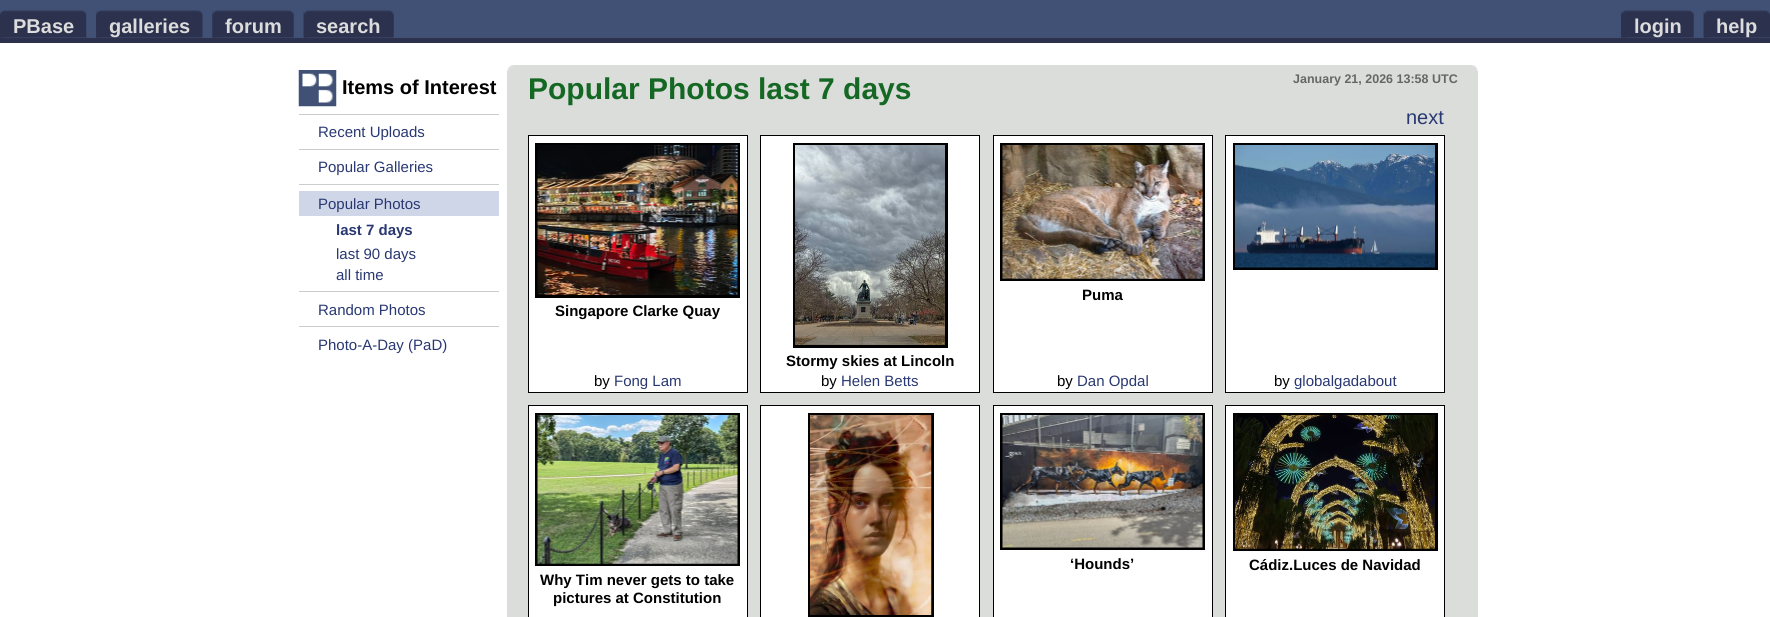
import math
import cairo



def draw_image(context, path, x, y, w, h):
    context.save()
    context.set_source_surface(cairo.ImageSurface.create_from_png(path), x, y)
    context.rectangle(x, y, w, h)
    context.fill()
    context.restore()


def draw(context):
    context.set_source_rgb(1, 1, 1)
    context.paint()
    context.set_source_rgb(65 / 255, 81 / 255, 118 / 255)
    context.rectangle(0, 0, 1770, 38)
    context.fill()
    context.set_source_rgb(44 / 255, 50 / 255, 78 / 255)
    context.rectangle(0, 38, 1770, 5)
    context.fill()
    draw_image(context, "images/1.png", 0, 10, 87, 28)
    draw_image(context, "images/2.png", 0, 10, 5, 28)
    draw_image(context, "images/3.png", 96, 10, 107, 28)
    draw_image(context, "images/4.png", 96, 10, 5, 28)
    draw_image(context, "images/5.png", 212, 10, 82, 28)
    draw_image(context, "images/6.png", 212, 10, 6, 28)
    draw_image(context, "images/7.png", 303, 10, 91, 28)
    draw_image(context, "images/8.png", 303, 10, 6, 28)
    draw_image(context, "images/9.png", 1621, 10, 73, 28)
    draw_image(context, "images/4.png", 1621, 10, 5, 28)
    draw_image(context, "images/10.png", 1703, 10, 67, 28)
    draw_image(context, "images/8.png", 1703, 10, 6, 28)
    draw_image(context, "images/11.png", 298, 70, 39, 37)
    context.set_source_rgb(204 / 255, 204 / 255, 204 / 255)
    context.rectangle(299, 114, 200, 1)
    context.fill()
    context.rectangle(299, 149, 200, 1)
    context.fill()
    context.rectangle(299, 184, 200, 1)
    context.fill()
    context.set_source_rgb(207 / 255, 214 / 255, 232 / 255)
    context.rectangle(299, 191, 200, 25)
    context.fill()
    context.set_source_rgb(204 / 255, 204 / 255, 204 / 255)
    context.rectangle(299, 291, 200, 1)
    context.fill()
    context.rectangle(299, 326, 200, 1)
    context.fill()
    draw_image(context, "images/12.png", 507, 65, 965, 6)
    draw_image(context, "images/13.png", 514, 65, 964, 6)
    context.set_source_rgb(219 / 255, 221 / 255, 219 / 255)
    context.rectangle(507, 71, 971, 546)
    context.fill()
    context.set_source_rgb(1, 1, 1)
    context.rectangle(528.5, 135.5, 219, 257)
    context.fill_preserve()
    context.set_source_rgb(0, 0, 0)
    context.set_line_width(1)
    context.stroke()
    context.rectangle(536.5, 144.5, 202, 152)
    context.set_line_width(3)
    context.stroke()
    draw_image(context, "images/14.png", 537, 145, 201, 150)
    context.set_source_rgb(1, 1, 1)
    context.rectangle(760.5, 135.5, 219, 257)
    context.fill_preserve()
    context.set_source_rgb(0, 0, 0)
    context.set_line_width(1)
    context.stroke()
    context.rectangle(794.5, 144.5, 152, 202)
    context.set_line_width(3)
    context.stroke()
    draw_image(context, "images/15.png", 795, 145, 150, 200)
    context.set_source_rgb(1, 1, 1)
    context.rectangle(993.5, 135.5, 219, 257)
    context.fill_preserve()
    context.set_source_rgb(0, 0, 0)
    context.set_line_width(1)
    context.stroke()
    context.rectangle(1001.5, 144.5, 202, 135)
    context.set_line_width(3)
    context.stroke()
    draw_image(context, "images/16.png", 1002, 145, 201, 134)
    context.set_source_rgb(1, 1, 1)
    context.rectangle(1225.5, 135.5, 219, 257)
    context.fill_preserve()
    context.set_source_rgb(0, 0, 0)
    context.set_line_width(1)
    context.stroke()
    context.rectangle(1234.5, 144.5, 202, 124)
    context.set_line_width(3)
    context.stroke()
    draw_image(context, "images/17.png", 1235, 145, 200, 123)
    context.set_source_rgb(1, 1, 1)
    context.rectangle(760.5, 405.5, 219, 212)
    context.fill_preserve()
    context.set_source_rgb(0, 0, 0)
    context.set_line_width(1)
    context.stroke()
    context.rectangle(809.5, 414.5, 123, 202)
    context.set_line_width(3)
    context.stroke()
    draw_image(context, "images/18.png", 810, 415, 122, 200)
    context.set_source_rgb(1, 1, 1)
    context.rectangle(993.5, 405.5, 219, 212)
    context.fill_preserve()
    context.set_source_rgb(0, 0, 0)
    context.set_line_width(1)
    context.stroke()
    context.rectangle(1001.5, 414.5, 202, 134)
    context.set_line_width(3)
    context.stroke()
    draw_image(context, "images/19.png", 1002, 415, 201, 133)
    context.set_source_rgb(1, 1, 1)
    context.rectangle(1225.5, 405.5, 219, 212)
    context.fill_preserve()
    context.set_source_rgb(0, 0, 0)
    context.set_line_width(1)
    context.stroke()
    context.rectangle(1234.5, 414.5, 202, 135)
    context.set_line_width(3)
    context.stroke()
    draw_image(context, "images/20.png", 1235, 415, 200, 134)
    context.set_source_rgb(1, 1, 1)
    context.rectangle(528.5, 405.5, 219, 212)
    context.fill_preserve()
    context.set_source_rgb(0, 0, 0)
    context.set_line_width(1)
    context.stroke()
    context.rectangle(536.5, 414.5, 202, 150)
    context.set_line_width(3)
    context.stroke()
    draw_image(context, "images/21.png", 537, 415, 201, 149)
    context.select_font_face("Liberation Sans", cairo.FontSlant.NORMAL, cairo.FontWeight.BOLD)
    context.set_font_size(20)
    context.set_source_rgb(220 / 255, 220 / 255, 220 / 255)
    context.move_to(13, 33)
    context.show_text("PBase")
    context.move_to(109, 33)
    context.show_text("galleries")
    context.move_to(225, 33)
    context.show_text("forum")
    context.move_to(316, 33)
    context.show_text("search")
    context.move_to(1634, 33)
    context.show_text("login")
    context.move_to(1716, 33)
    context.show_text("help")
    context.set_source_rgb(0, 0, 0)
    context.move_to(342, 94)
    context.show_text("Items of Interest")
    context.select_font_face("Liberation Sans")
    context.set_font_size(15)
    context.set_source_rgb(41 / 255, 56 / 255, 114 / 255)
    context.move_to(318, 137)
    context.show_text("Recent Uploads")
    context.move_to(318, 172)
    context.show_text("Popular Galleries")
    context.move_to(318, 209)
    context.show_text("Popular Photos")
    context.select_font_face("Liberation Sans", cairo.FontSlant.NORMAL, cairo.FontWeight.BOLD)
    context.move_to(336, 235)
    context.show_text("last 7 days")
    context.select_font_face("Liberation Sans")
    context.move_to(336, 259)
    context.show_text("last 90 days")
    context.move_to(336, 280)
    context.show_text("all time")
    context.move_to(318, 315)
    context.show_text("Random Photos")
    context.move_to(318, 350)
    context.show_text("Photo-A-Day (PaD)")
    context.select_font_face("Liberation Sans", cairo.FontSlant.NORMAL, cairo.FontWeight.BOLD)
    context.set_font_size(30)
    context.set_source_rgb(21 / 255, 104 / 255, 36 / 255)
    context.move_to(528, 99)
    context.show_text("Popular Photos last 7 days")
    context.set_font_size(12.5)
    context.set_source_rgb(102 / 255, 102 / 255, 102 / 255)
    context.move_to(1293, 83)
    context.show_text("January 21, 2026 13:58 UTC")
    context.select_font_face("Liberation Sans")
    context.set_font_size(20)
    context.set_source_rgb(41 / 255, 56 / 255, 114 / 255)
    context.move_to(1406, 124)
    context.show_text("next")
    context.select_font_face("Liberation Sans", cairo.FontSlant.NORMAL, cairo.FontWeight.BOLD)
    context.set_font_size(15)
    context.set_source_rgb(0, 0, 0)
    context.move_to(555, 316)
    context.show_text("Singapore Clarke Quay")
    context.select_font_face("Liberation Sans")
    context.move_to(594, 386)
    context.show_text("by")
    context.set_source_rgb(41 / 255, 56 / 255, 114 / 255)
    context.move_to(614, 386)
    context.show_text("Fong Lam")
    context.select_font_face("Liberation Sans", cairo.FontSlant.NORMAL, cairo.FontWeight.BOLD)
    context.set_source_rgb(0, 0, 0)
    context.move_to(786, 366)
    context.show_text("Stormy skies at Lincoln")
    context.select_font_face("Liberation Sans")
    context.move_to(821, 386)
    context.show_text("by")
    context.set_source_rgb(41 / 255, 56 / 255, 114 / 255)
    context.move_to(841, 386)
    context.show_text("Helen Betts")
    context.select_font_face("Liberation Sans", cairo.FontSlant.NORMAL, cairo.FontWeight.BOLD)
    context.set_source_rgb(0, 0, 0)
    context.move_to(1082, 300)
    context.show_text("Puma")
    context.select_font_face("Liberation Sans")
    context.move_to(1057, 386)
    context.show_text("by")
    context.set_source_rgb(41 / 255, 56 / 255, 114 / 255)
    context.move_to(1077, 386)
    context.show_text("Dan Opdal")
    context.set_source_rgb(0, 0, 0)
    context.move_to(1274, 386)
    context.show_text("by")
    context.set_source_rgb(41 / 255, 56 / 255, 114 / 255)
    context.move_to(1294, 386)
    context.show_text("globalgadabout")
    context.select_font_face("Liberation Sans", cairo.FontSlant.NORMAL, cairo.FontWeight.BOLD)
    context.set_source_rgb(0, 0, 0)
    context.move_to(1070, 569)
    context.show_text("‘Hounds’")
    context.move_to(1249, 570)
    context.show_text("Cádiz.Luces de Navidad")
    context.move_to(540, 585)
    context.show_text("Why Tim never gets to take")
    context.move_to(553, 603)
    context.show_text("pictures at Constitution")


surface = cairo.ImageSurface(cairo.Format.RGB24, 1770, 617)
context = cairo.Context(surface)
options = cairo.FontOptions()
options.set_hint_metrics(cairo.HintMetrics.OFF)
options.set_hint_style(cairo.HintStyle.NONE)
context.set_font_options(options)
context.set_miter_limit(4)
draw(context)
surface.write_to_png("out.png")
